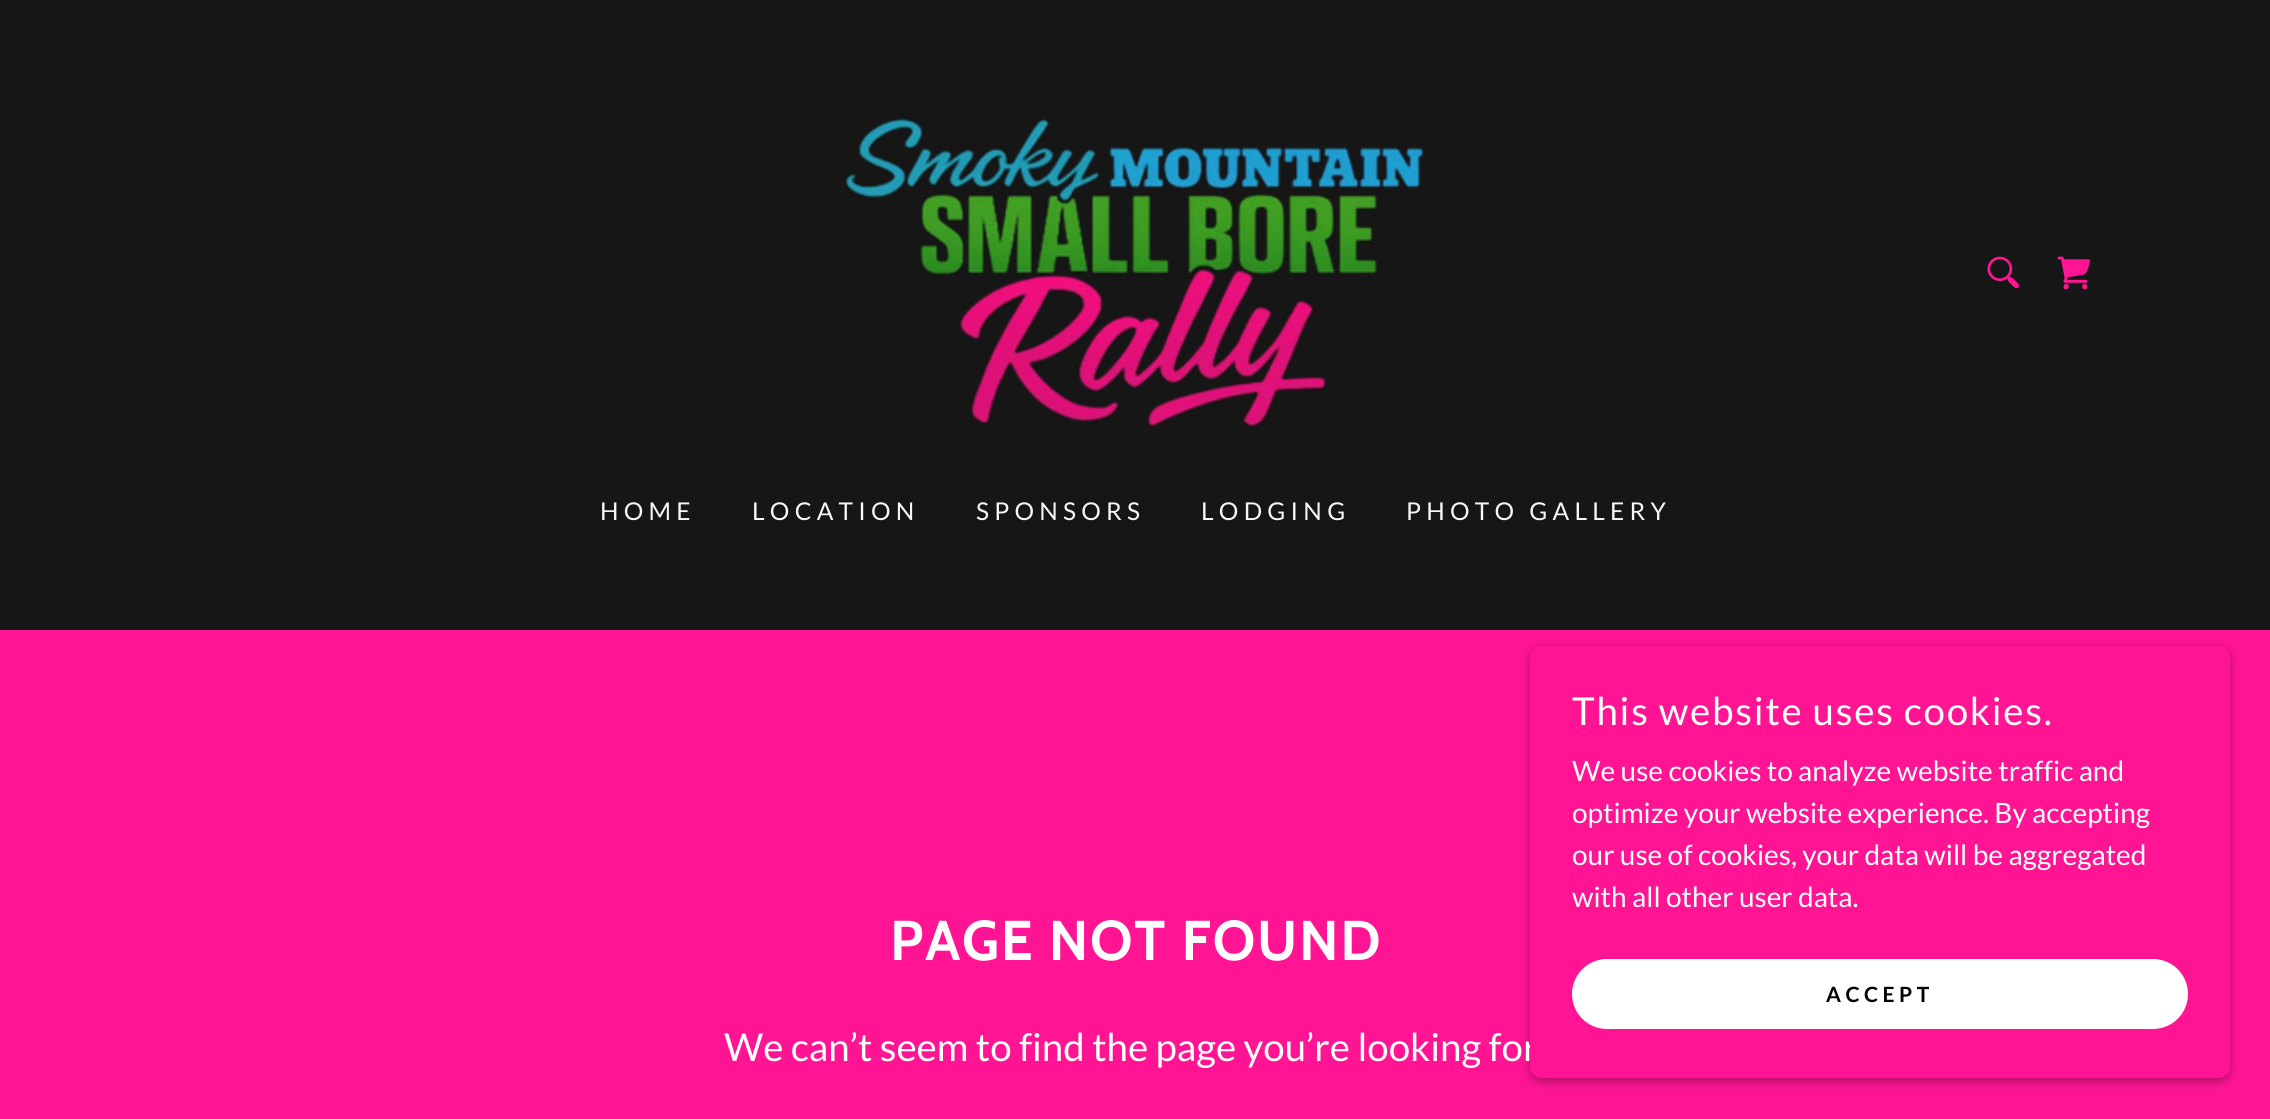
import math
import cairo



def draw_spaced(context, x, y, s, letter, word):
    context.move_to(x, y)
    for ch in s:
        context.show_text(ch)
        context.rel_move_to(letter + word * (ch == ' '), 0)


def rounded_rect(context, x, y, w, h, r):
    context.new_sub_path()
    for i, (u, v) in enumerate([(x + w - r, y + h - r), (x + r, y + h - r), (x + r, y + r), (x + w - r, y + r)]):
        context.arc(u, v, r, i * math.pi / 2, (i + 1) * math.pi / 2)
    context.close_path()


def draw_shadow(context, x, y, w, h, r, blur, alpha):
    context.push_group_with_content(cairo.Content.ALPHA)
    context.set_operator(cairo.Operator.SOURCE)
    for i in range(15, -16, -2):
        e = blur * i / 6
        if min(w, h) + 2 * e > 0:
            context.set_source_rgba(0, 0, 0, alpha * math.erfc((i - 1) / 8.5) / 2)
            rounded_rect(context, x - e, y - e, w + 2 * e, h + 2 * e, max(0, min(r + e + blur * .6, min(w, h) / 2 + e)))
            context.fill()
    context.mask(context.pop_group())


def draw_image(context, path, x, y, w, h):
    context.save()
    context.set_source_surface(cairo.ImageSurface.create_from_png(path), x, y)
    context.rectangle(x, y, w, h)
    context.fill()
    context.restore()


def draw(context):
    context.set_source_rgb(22 / 255, 22 / 255, 22 / 255)
    context.paint()
    draw_image(context, "images/1.png", 845, 118, 579, 309)
    draw_image(context, "images/2.png", 1987, 256, 32, 33)
    draw_image(context, "images/3.png", 2057, 256, 34, 34)
    context.set_source_rgb(1, 20 / 255, 147 / 255)
    context.rectangle(0, 630, 2270, 489)
    context.fill()
    context.set_source_rgb(0, 0, 0)
    draw_shadow(context, 1530, 649, 700, 433, 12, 5, 0.3)
    context.select_font_face("Lato")
    context.set_font_size(24.5)
    context.set_source_rgb(247 / 255, 247 / 255, 247 / 255)
    draw_spaced(context, 600, 520, "HOME", 5.25, 0)
    draw_spaced(context, 752, 520, "LOCATION", 5.25, 0)
    draw_spaced(context, 976, 520, "SPONSORS", 5.25, 0)
    draw_spaced(context, 1201, 520, "LODGING", 5.25, 0)
    draw_spaced(context, 1406, 520, "PHOTO GALLERY", 5.25, 0)
    context.select_font_face("Cabin", cairo.FontSlant.NORMAL, cairo.FontWeight.BOLD)
    context.set_font_size(56)
    context.set_source_rgb(1, 1, 1)
    draw_spaced(context, 890, 960, "PAGE NOT FOUND", 1.75, 0)
    context.select_font_face("Lato")
    context.set_font_size(38.5)
    context.move_to(724, 1061)
    context.show_text("We can’t seem to find the page you’re looking for")
    context.set_source_rgb(1, 20 / 255, 147 / 255)
    rounded_rect(context, 1530, 646, 700, 432, 12)
    context.fill()
    context.set_source_rgb(1, 1, 1)
    draw_spaced(context, 1572, 725, "This website uses cookies.", 1.75, 0)
    context.set_font_size(28)
    context.move_to(1572, 781)
    context.show_text("We use cookies to analyze website traffic and")
    context.move_to(1572, 823)
    context.show_text("optimize your website experience. By accepting")
    context.move_to(1572, 865)
    context.show_text("our use of cookies, your data will be aggregated")
    context.move_to(1572, 907)
    context.show_text("with all other user data.")
    rounded_rect(context, 1572, 959, 616, 70, 35)
    context.fill()
    context.select_font_face("Lato", cairo.FontSlant.NORMAL, cairo.FontWeight.BOLD)
    context.set_font_size(21)
    context.set_source_rgb(0, 0, 0)
    draw_spaced(context, 1826, 1002, "ACCEPT", 4.5, 0)


surface = cairo.ImageSurface(cairo.Format.RGB24, 2270, 1119)
context = cairo.Context(surface)
options = cairo.FontOptions()
options.set_hint_metrics(cairo.HintMetrics.OFF)
options.set_hint_style(cairo.HintStyle.NONE)
context.set_font_options(options)
context.set_miter_limit(4)
draw(context)
surface.write_to_png("out.png")
